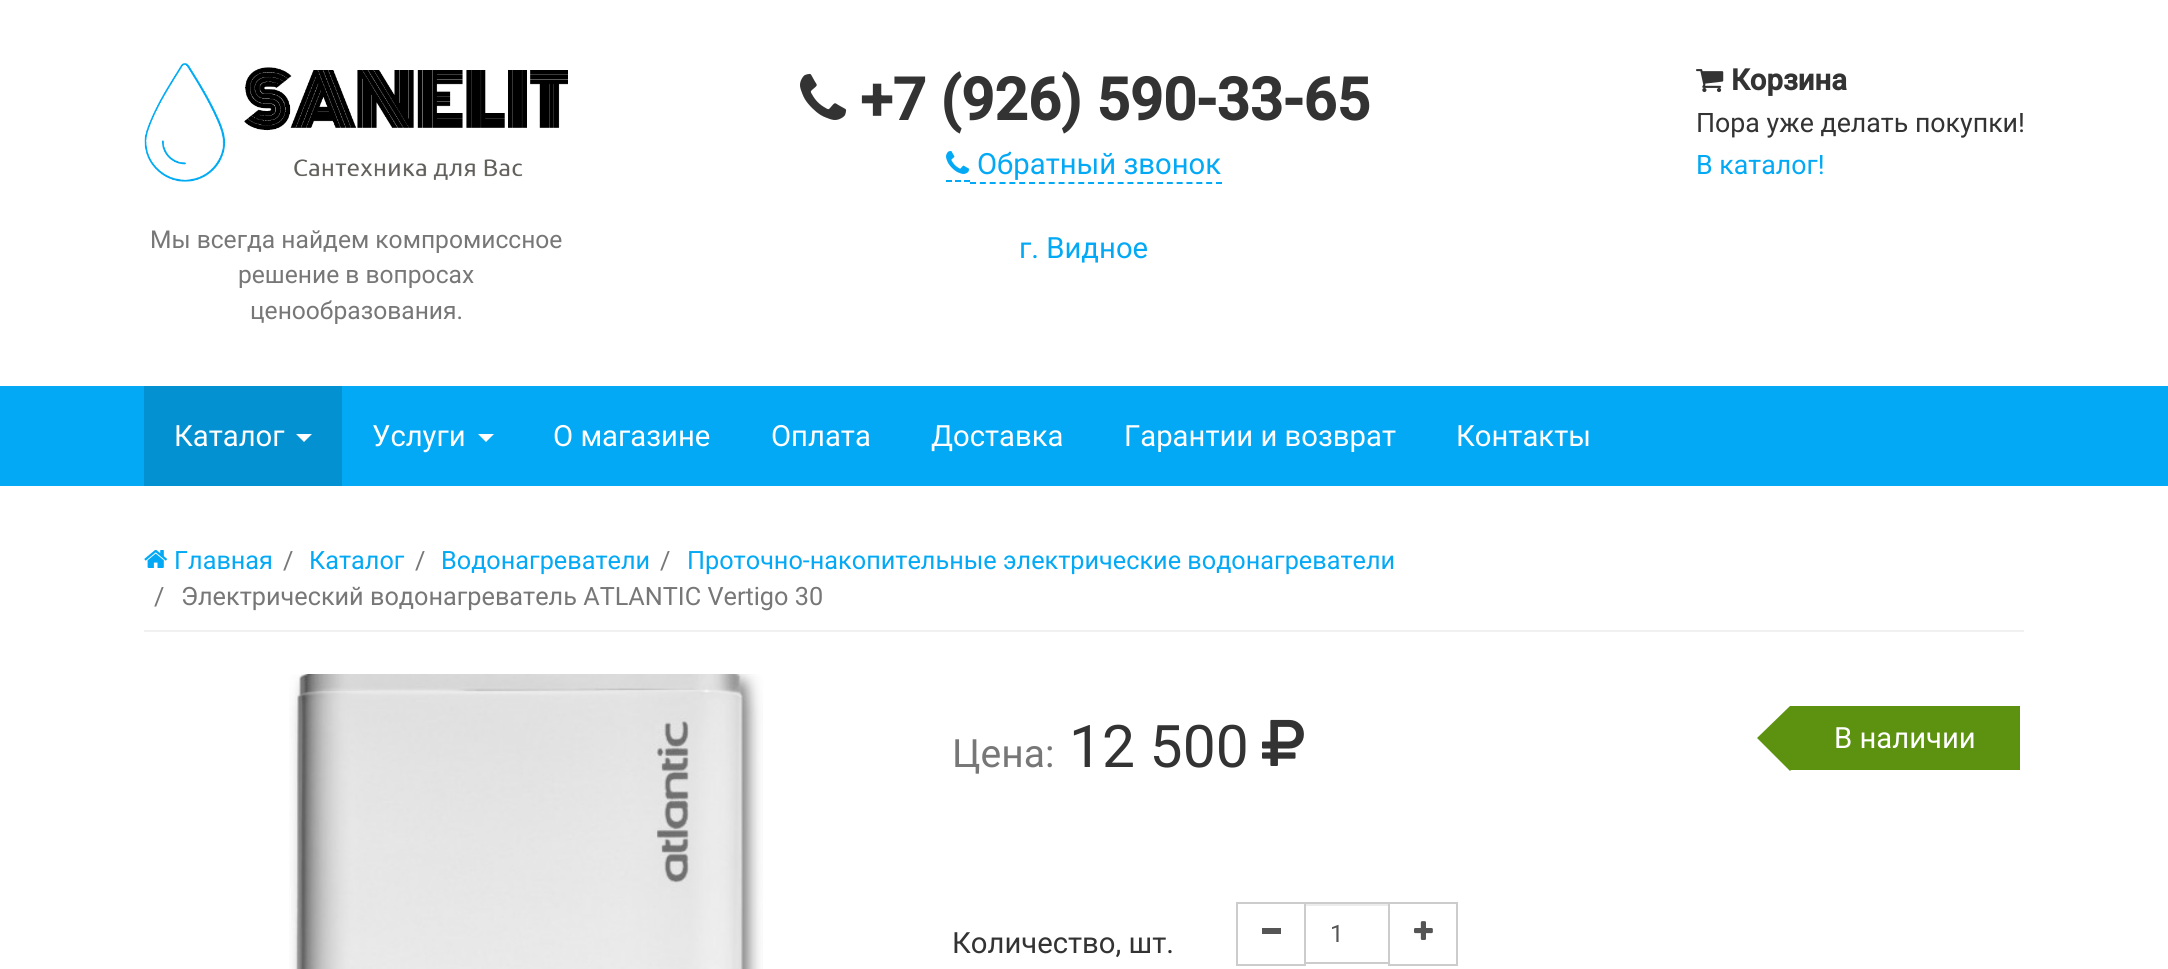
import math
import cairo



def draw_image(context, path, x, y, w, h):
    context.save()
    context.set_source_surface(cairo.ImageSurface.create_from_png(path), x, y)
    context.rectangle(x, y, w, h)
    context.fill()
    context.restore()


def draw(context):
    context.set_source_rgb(1, 1, 1)
    context.paint()
    draw_image(context, "images/1.png", 800, 73, 47, 47)
    context.new_path()
    context.move_to(946, 181)
    context.line_to(952, 181)
    context.move_to(955, 181)
    context.line_to(961, 181)
    context.move_to(964, 181)
    context.line_to(970, 181)
    context.set_source_rgb(3 / 255, 169 / 255, 244 / 255)
    context.stroke()
    context.new_path()
    context.move_to(970, 183)
    context.line_to(1222, 183)
    context.set_dash([6, 3.84])
    context.stroke()
    draw_image(context, "images/2.png", 946, 151, 23, 23)
    draw_image(context, "images/3.png", 1696, 69, 28, 24)
    draw_image(context, "images/4.png", 144, 63, 424, 119)
    context.rectangle(0, 386, 2168, 100)
    context.fill()
    context.set_source_rgb(3 / 255, 145 / 255, 209 / 255)
    context.rectangle(144, 386, 198, 100)
    context.fill()
    context.set_source_rgb(1, 1, 1)
    context.new_path()
    context.move_to(296, 434)
    context.line_to(312, 434)
    context.line_to(304, 442)
    context.close_path()
    context.fill()
    context.new_path()
    context.move_to(478, 434)
    context.line_to(494, 434)
    context.line_to(486, 442)
    context.close_path()
    context.fill()
    context.set_source_rgb(241 / 255, 241 / 255, 241 / 255)
    context.rectangle(144, 630, 1880, 2)
    context.fill()
    draw_image(context, "images/5.png", 144, 549, 23, 19)
    draw_image(context, "images/6.png", 289, 674, 474, 295)
    draw_image(context, "images/7.png", 1262, 719, 42, 47)
    context.set_source_rgb(93 / 255, 146 / 255, 17 / 255)
    context.rectangle(1790, 706, 230, 64)
    context.fill()
    context.new_path()
    context.move_to(1757, 738)
    context.line_to(1790, 706)
    context.line_to(1822, 738)
    context.line_to(1790, 771)
    context.close_path()
    context.fill()
    context.rectangle(1237, 903, 68, 62)
    context.set_source_rgb(204 / 255, 204 / 255, 204 / 255)
    context.set_dash([])
    context.stroke()
    context.set_source_rgb(85 / 255, 85 / 255, 85 / 255)
    context.rectangle(1262, 928, 19, 6)
    context.fill()
    context.set_source_rgb(236 / 255, 236 / 255, 236 / 255)
    context.rectangle(1306, 904, 82, 2)
    context.fill()
    context.rectangle(1305, 903, 84, 60)
    context.set_source_rgb(204 / 255, 204 / 255, 204 / 255)
    context.stroke()
    context.rectangle(1389, 903, 68, 62)
    context.stroke()
    draw_image(context, "images/8.png", 1414, 921, 19, 19)
    context.select_font_face("Roboto", cairo.FontSlant.NORMAL, cairo.FontWeight.BOLD)
    context.set_font_size(58.75)
    context.set_source_rgb(51 / 255, 51 / 255, 51 / 255)
    context.move_to(860, 120)
    context.show_text("+7 (926) 590-33-65")
    context.select_font_face("Roboto")
    context.set_font_size(29.25)
    context.set_source_rgb(3 / 255, 169 / 255, 244 / 255)
    context.move_to(977, 174)
    context.show_text("Обратный звонок")
    context.move_to(1019, 258)
    context.show_text("г. Видное")
    context.select_font_face("Roboto", cairo.FontSlant.NORMAL, cairo.FontWeight.BOLD)
    context.set_source_rgb(51 / 255, 51 / 255, 51 / 255)
    context.move_to(1731, 90)
    context.show_text("Корзина")
    context.select_font_face("Roboto")
    context.set_font_size(26.75)
    context.move_to(1696, 132)
    context.show_text("Пора уже делать покупки!")
    context.set_source_rgb(3 / 255, 169 / 255, 244 / 255)
    context.move_to(1696, 174)
    context.show_text("В каталог!")
    context.set_font_size(24.6)
    context.set_source_rgb(119 / 255, 119 / 255, 119 / 255)
    context.move_to(150, 248)
    context.show_text("Мы всегда найдем компромиссное")
    context.move_to(238, 283)
    context.show_text("решение в вопросах")
    context.move_to(250, 319)
    context.show_text("ценообразования.")
    context.set_font_size(29.25)
    context.set_source_rgb(1, 1, 1)
    context.move_to(174, 446)
    context.show_text("Каталог")
    context.move_to(372, 446)
    context.show_text("Услуги")
    context.move_to(553, 446)
    context.show_text("О магазине")
    context.move_to(771, 446)
    context.show_text("Оплата")
    context.move_to(931, 446)
    context.show_text("Доставка")
    context.move_to(1124, 446)
    context.show_text("Гарантии и возврат")
    context.move_to(1456, 446)
    context.show_text("Контакты")
    context.set_font_size(25.25)
    context.set_source_rgb(3 / 255, 169 / 255, 244 / 255)
    context.move_to(174, 569)
    context.show_text("Главная")
    context.set_source_rgb(119 / 255, 119 / 255, 119 / 255)
    context.move_to(283, 569)
    context.show_text("/")
    context.set_source_rgb(3 / 255, 169 / 255, 244 / 255)
    context.move_to(309, 569)
    context.show_text("Каталог")
    context.set_source_rgb(119 / 255, 119 / 255, 119 / 255)
    context.move_to(415, 569)
    context.show_text("/")
    context.set_source_rgb(3 / 255, 169 / 255, 244 / 255)
    context.move_to(441, 569)
    context.show_text("Водонагреватели")
    context.set_source_rgb(119 / 255, 119 / 255, 119 / 255)
    context.move_to(660, 569)
    context.show_text("/")
    context.set_source_rgb(3 / 255, 169 / 255, 244 / 255)
    context.move_to(687, 569)
    context.show_text("Проточно-накопительные электрические водонагреватели")
    context.set_source_rgb(119 / 255, 119 / 255, 119 / 255)
    context.move_to(154, 605)
    context.show_text("/")
    context.move_to(181, 605)
    context.show_text("Электрический водонагреватель ATLANTIC Vertigo 30")
    context.set_font_size(39)
    context.move_to(952, 767)
    context.show_text("Цена:")
    context.set_font_size(58.75)
    context.set_source_rgb(51 / 255, 51 / 255, 51 / 255)
    context.move_to(1069, 767)
    context.show_text("12 500")
    context.set_font_size(29.25)
    context.set_source_rgb(1, 1, 1)
    context.move_to(1834, 748)
    context.show_text("В наличии")
    context.set_source_rgb(51 / 255, 51 / 255, 51 / 255)
    context.move_to(952, 953)
    context.show_text("Количество, шт.")
    context.set_font_size(24)
    context.set_source_rgb(85 / 255, 85 / 255, 85 / 255)
    context.move_to(1330, 942)
    context.show_text("1")


surface = cairo.ImageSurface(cairo.Format.RGB24, 2168, 969)
context = cairo.Context(surface)
options = cairo.FontOptions()
options.set_hint_metrics(cairo.HintMetrics.OFF)
options.set_hint_style(cairo.HintStyle.NONE)
context.set_font_options(options)
context.set_miter_limit(4)
draw(context)
surface.write_to_png("out.png")
